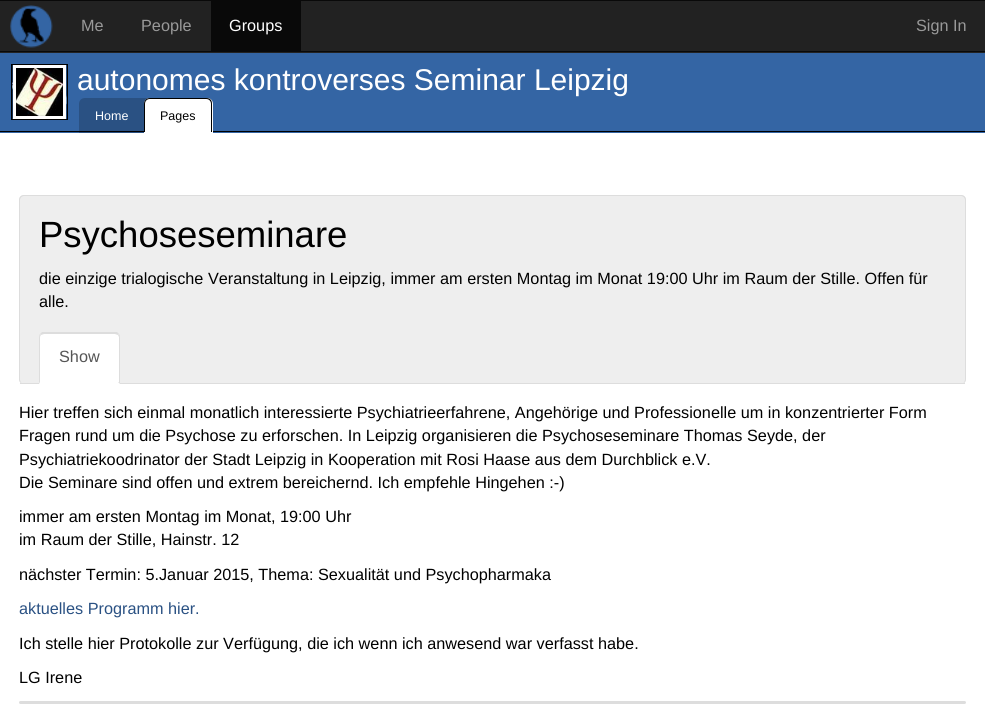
import math
import cairo



def rounded_rect(context, x, y, w, h, r):
    context.new_sub_path()
    for i, (u, v) in enumerate([(x + w - r, y + h - r), (x + r, y + h - r), (x + r, y + r), (x + w - r, y + r)]):
        context.arc(u, v, r, i * math.pi / 2, (i + 1) * math.pi / 2)
    context.close_path()


def draw_image(context, path, x, y, w, h):
    context.save()
    context.set_source_surface(cairo.ImageSurface.create_from_png(path), x, y)
    context.rectangle(x, y, w, h)
    context.fill()
    context.restore()


def draw(context):
    context.set_source_rgb(1, 1, 1)
    context.paint()
    context.set_source_rgb(34 / 255, 34 / 255, 34 / 255)
    context.rectangle(0, 1, 985, 52)
    context.fill()
    context.set_source_rgb(9 / 255, 9 / 255, 9 / 255)
    context.rectangle(0, 0, 985, 1)
    context.fill()
    context.rectangle(0, 51, 985, 1)
    context.fill()
    draw_image(context, "images/1.png", 10, 5, 43, 43)
    context.rectangle(211, 1, 90, 50)
    context.fill()
    context.set_source_rgb(52 / 255, 101 / 255, 164 / 255)
    context.rectangle(0, 53, 985, 80)
    context.fill()
    context.set_source_rgb(0, 0, 0)
    context.rectangle(0, 131, 985, 1)
    context.fill()
    draw_image(context, "images/2.png", 12, 65, 55, 54)
    context.rectangle(14.5, 66.5, 50, 51)
    context.set_source_rgb(1, 1, 1)
    context.set_line_width(3)
    context.stroke()
    context.rectangle(11.5, 64.5, 56, 55)
    context.set_source_rgb(0, 0, 0)
    context.set_line_width(1)
    context.stroke()
    context.set_source_rgba(0, 0, 0, 0.2)
    context.new_path()
    context.move_to(85, 98)
    context.line_to(144, 98)
    context.line_to(144, 133)
    context.line_to(79, 133)
    context.line_to(79, 104)
    context.curve_to(79, 100.5, 81.5, 98, 85, 98)
    context.close_path()
    context.fill()
    context.new_path()
    context.move_to(144, 98)
    context.line_to(207, 98)
    context.curve_to(210.5, 98, 213, 100.5, 213, 104)
    context.line_to(213, 133)
    context.line_to(144, 133)
    context.close_path()
    context.fill()
    context.set_source_rgb(1, 1, 1)
    context.new_path()
    context.move_to(150, 98)
    context.line_to(207, 98)
    context.curve_to(210.5, 98, 213, 100.5, 213, 104)
    context.line_to(213, 133)
    context.line_to(144, 133)
    context.line_to(144, 104)
    context.curve_to(144, 100.5, 146.5, 98, 150, 98)
    context.close_path()
    context.fill()
    context.set_source_rgb(0, 0, 0)
    context.set_fill_rule(cairo.FillRule.EVEN_ODD)
    context.new_path()
    context.move_to(150, 98)
    context.line_to(206, 98)
    context.curve_to(210, 98, 212, 100, 212, 104)
    context.line_to(212, 132)
    context.line_to(144, 132)
    context.line_to(144, 104)
    context.curve_to(144, 100, 147, 98, 150, 98)
    context.close_path()
    context.move_to(150, 99)
    context.line_to(206, 99)
    context.curve_to(209, 99, 211, 101, 211, 104)
    context.line_to(211, 132)
    context.line_to(145, 132)
    context.line_to(145, 104)
    context.curve_to(145, 101, 147, 99, 150, 99)
    context.close_path()
    context.fill()
    context.set_source_rgb(238 / 255, 238 / 255, 238 / 255)
    rounded_rect(context, 19, 195, 947, 189, 5)
    context.fill()
    context.set_source_rgb(221 / 255, 221 / 255, 221 / 255)
    context.new_path()
    context.move_to(24, 195)
    context.line_to(961, 195)
    context.curve_to(964, 195, 966, 197, 966, 200)
    context.line_to(966, 379)
    context.curve_to(966, 382, 964, 384, 961, 384)
    context.line_to(24, 384)
    context.curve_to(21, 384, 19, 382, 19, 379)
    context.line_to(19, 200)
    context.curve_to(19, 197, 21, 195, 24, 195)
    context.close_path()
    context.move_to(24, 196)
    context.line_to(961, 196)
    context.curve_to(963, 196, 965, 198, 965, 200)
    context.line_to(965, 379)
    context.curve_to(965, 382, 963, 384, 961, 384)
    context.line_to(24, 384)
    context.curve_to(22, 384, 20, 382, 20, 379)
    context.line_to(20, 200)
    context.curve_to(20, 198, 22, 196, 24, 196)
    context.close_path()
    context.fill()
    context.rectangle(20, 383, 945, 1)
    context.fill()
    context.set_source_rgb(1, 1, 1)
    context.new_path()
    context.move_to(44, 333)
    context.line_to(115, 333)
    context.curve_to(118, 333, 120, 335, 120, 338)
    context.line_to(120, 384)
    context.line_to(39, 384)
    context.line_to(39, 338)
    context.curve_to(39, 335, 41, 333, 44, 333)
    context.close_path()
    context.fill()
    context.set_source_rgb(221 / 255, 221 / 255, 221 / 255)
    context.set_fill_rule(cairo.FillRule.WINDING)
    context.new_path()
    context.move_to(44, 334)
    context.line_to(41, 335)
    context.line_to(40, 334)
    context.line_to(42, 332)
    context.line_to(117, 332)
    context.line_to(119, 334)
    context.line_to(118, 335)
    context.line_to(115, 334)
    context.close_path()
    context.fill()
    context.new_path()
    context.move_to(120, 384)
    context.line_to(120, 338)
    context.curve_to(120, 336, 120, 335, 119, 334)
    context.line_to(118, 335)
    context.line_to(119, 337)
    context.line_to(119, 382)
    context.line_to(118, 382)
    context.close_path()
    context.fill()
    context.new_path()
    context.move_to(39, 384)
    context.line_to(39, 338)
    context.curve_to(39, 337, 39, 335, 40, 334)
    context.line_to(41, 335)
    context.curve_to(40, 336, 40, 337, 40, 338)
    context.line_to(40, 382)
    context.close_path()
    context.fill()
    rounded_rect(context, 19, 701, 947, 3, 1.5)
    context.fill()
    context.select_font_face("Liberation Sans")
    context.set_font_size(16.25)
    context.set_source_rgb(153 / 255, 153 / 255, 153 / 255)
    context.move_to(81, 31)
    context.show_text("Me")
    context.move_to(141, 31)
    context.show_text("People")
    context.set_source_rgb(1, 1, 1)
    context.move_to(229, 31)
    context.show_text("Groups")
    context.set_source_rgb(153 / 255, 153 / 255, 153 / 255)
    context.move_to(916, 31)
    context.show_text("Sign In")
    context.set_font_size(30)
    context.set_source_rgb(1, 1, 1)
    context.move_to(77, 90)
    context.show_text("autonomes kontroverses Seminar Leipzig")
    context.set_font_size(12.5)
    context.move_to(95, 120)
    context.show_text("Home")
    context.set_source_rgb(0, 0, 0)
    context.move_to(160, 120)
    context.show_text("Pages")
    context.set_font_size(36.5)
    context.move_to(39, 247)
    context.show_text("Psychoseseminare")
    context.set_font_size(16.25)
    context.move_to(39, 284)
    context.show_text("die einzige trialogische Veranstaltung in Leipzig, immer am ersten Montag im Monat 19:00 Uhr im Raum der Stille. Offen für")
    context.move_to(39, 307)
    context.show_text("alle.")
    context.set_source_rgb(85 / 255, 85 / 255, 85 / 255)
    context.move_to(59, 362)
    context.show_text("Show")
    context.set_source_rgb(0, 0, 0)
    context.move_to(19, 418)
    context.show_text("Hier treffen sich einmal monatlich interessierte Psychiatrieerfahrene, Angehörige und Professionelle um in konzentrierter Form")
    context.move_to(19, 441)
    context.show_text("Fragen rund um die Psychose zu erforschen. In Leipzig organisieren die Psychoseseminare Thomas Seyde, der")
    context.move_to(19, 465)
    context.show_text("Psychiatriekoodrinator der Stadt Leipzig in Kooperation mit Rosi Haase aus dem Durchblick e.V.")
    context.move_to(19, 488)
    context.show_text("Die Seminare sind offen und extrem bereichernd. Ich empfehle Hingehen :-)")
    context.move_to(19, 522)
    context.show_text("immer am ersten Montag im Monat, 19:00 Uhr")
    context.move_to(19, 545)
    context.show_text("im Raum der Stille, Hainstr. 12")
    context.move_to(19, 580)
    context.show_text("nächster Termin: 5.Januar 2015, Thema: Sexualität und Psychopharmaka")
    context.set_source_rgb(42 / 255, 81 / 255, 131 / 255)
    context.move_to(19, 614)
    context.show_text("aktuelles Programm hier.")
    context.set_source_rgb(0, 0, 0)
    context.move_to(19, 649)
    context.show_text("Ich stelle hier Protokolle zur Verfügung, die ich wenn ich anwesend war verfasst habe.")
    context.move_to(19, 683)
    context.show_text("LG Irene")


surface = cairo.ImageSurface(cairo.Format.RGB24, 985, 710)
context = cairo.Context(surface)
options = cairo.FontOptions()
options.set_hint_metrics(cairo.HintMetrics.OFF)
options.set_hint_style(cairo.HintStyle.NONE)
context.set_font_options(options)
context.set_miter_limit(4)
draw(context)
surface.write_to_png("out.png")
